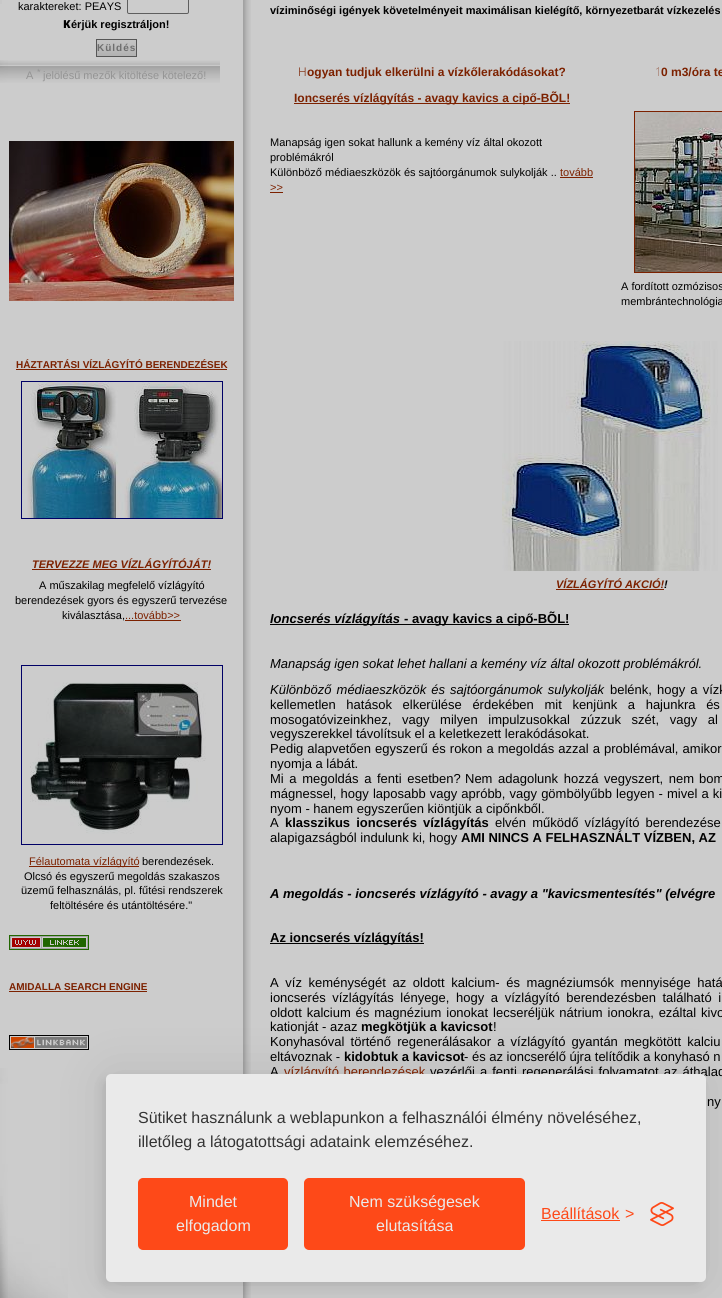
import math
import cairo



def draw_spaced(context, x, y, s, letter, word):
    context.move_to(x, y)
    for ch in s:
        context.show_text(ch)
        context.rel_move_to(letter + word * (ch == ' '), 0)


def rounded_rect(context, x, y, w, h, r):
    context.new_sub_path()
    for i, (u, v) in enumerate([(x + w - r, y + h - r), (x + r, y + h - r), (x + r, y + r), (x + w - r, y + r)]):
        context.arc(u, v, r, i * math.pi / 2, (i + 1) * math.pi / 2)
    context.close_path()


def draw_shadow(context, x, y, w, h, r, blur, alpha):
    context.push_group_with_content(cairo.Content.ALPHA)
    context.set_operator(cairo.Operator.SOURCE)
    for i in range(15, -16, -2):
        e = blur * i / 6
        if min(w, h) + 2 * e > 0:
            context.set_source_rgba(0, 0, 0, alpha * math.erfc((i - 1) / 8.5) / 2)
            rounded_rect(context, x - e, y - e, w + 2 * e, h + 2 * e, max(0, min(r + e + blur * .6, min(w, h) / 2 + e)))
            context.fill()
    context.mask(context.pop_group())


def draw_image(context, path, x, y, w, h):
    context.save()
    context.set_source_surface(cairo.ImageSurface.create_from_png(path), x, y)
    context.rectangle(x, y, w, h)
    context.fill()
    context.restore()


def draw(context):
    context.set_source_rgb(204 / 255, 204 / 255, 204 / 255)
    context.paint()
    draw_image(context, "images/1.png", 0, 1068, 68, 230)
    context.set_source_rgb(200 / 255, 200 / 255, 200 / 255)
    context.rectangle(0, 0, 2, 4)
    context.fill()
    draw_image(context, "images/2.png", 0, 60, 220, 23)
    rounded_rect(context, 127.5, -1.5, 61, 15, 1.5)
    context.set_source_rgb(94 / 255, 94 / 255, 94 / 255)
    context.set_line_width(1)
    context.stroke()
    draw_image(context, "images/3.png", 97, 40, 39, 16)
    context.rectangle(96.5, 39.5, 40, 17)
    context.set_source_rgb(86 / 255, 86 / 255, 86 / 255)
    context.stroke()
    draw_image(context, "images/4.png", 9, 141, 225, 160)
    context.set_source_rgb(124 / 255, 33 / 255, 0)
    context.rectangle(16, 369, 211, 1)
    context.fill()
    context.rectangle(21.5, 381.5, 201, 137)
    context.set_source_rgb(0, 0, 102 / 255)
    context.stroke()
    draw_image(context, "images/5.png", 22, 382, 200, 136)
    context.set_source_rgb(124 / 255, 33 / 255, 0)
    context.rectangle(32, 569, 179, 1)
    context.fill()
    context.rectangle(125, 620, 56, 1)
    context.fill()
    context.rectangle(21.5, 665.5, 201, 179)
    context.set_source_rgb(0, 0, 102 / 255)
    context.stroke()
    draw_image(context, "images/6.png", 30, 682, 176, 152)
    context.set_source_rgb(124 / 255, 33 / 255, 0)
    context.rectangle(29, 866, 110, 1)
    context.fill()
    draw_image(context, "images/7.png", 9, 935, 80, 15)
    context.rectangle(9, 991, 138, 1)
    context.fill()
    draw_image(context, "images/8.png", 9, 1035, 80, 15)
    draw_image(context, "images/9.png", 243, 0, 8, 1298)
    context.rectangle(294, 103, 276, 1)
    context.fill()
    context.rectangle(560, 177, 33, 1)
    context.fill()
    context.rectangle(270, 192, 13, 1)
    context.fill()
    context.rectangle(634.5, 111.5, 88, 161)
    context.stroke()
    draw_image(context, "images/10.png", 635, 112, 87, 160)
    draw_image(context, "images/11.png", 502, 341, 216, 230)
    context.rectangle(556, 589, 108, 1)
    context.fill()
    context.set_source_rgb(0, 0, 0)
    context.rectangle(270, 624, 299, 1)
    context.fill()
    context.rectangle(270, 943, 154, 1)
    context.fill()
    context.set_source_rgb(0, 0, 0)
    draw_shadow(context, 106, 1074, 600, 208, 5, 25, 0.1)
    draw_shadow(context, 101, 1079, 600, 208, 5, 5, 0.07)
    context.select_font_face("Liberation Sans")
    context.set_font_size(11)
    context.set_source_rgb(0, 0, 0)
    context.move_to(18, 10)
    context.show_text("karaktereket: PEAYS")
    context.select_font_face("Noto Sans Black")
    context.move_to(63, 28)
    context.show_text("K")
    context.select_font_face("Liberation Sans", cairo.FontSlant.NORMAL, cairo.FontWeight.BOLD)
    context.move_to(71, 28)
    context.show_text("érjük regisztráljon!")
    context.set_font_size(10)
    context.set_source_rgb(110 / 255, 110 / 255, 110 / 255)
    draw_spaced(context, 97, 51, "Küldés", 1, 0)
    context.select_font_face("Liberation Sans")
    context.set_font_size(11)
    context.set_source_rgb(148 / 255, 148 / 255, 148 / 255)
    context.move_to(26, 79)
    context.show_text("A")
    context.set_font_size(9)
    context.move_to(37, 75)
    context.show_text("*")
    context.set_font_size(11)
    context.move_to(43, 79)
    context.show_text("jelölésű mezők kitöltése kötelező!")
    context.select_font_face("Liberation Sans", cairo.FontSlant.NORMAL, cairo.FontWeight.BOLD)
    context.set_font_size(10)
    context.set_source_rgb(124 / 255, 33 / 255, 0)
    context.move_to(16, 368)
    context.show_text("HÁZTARTÁSI VÍZLÁGYÍTÓ BERENDEZÉSEK")
    context.select_font_face("Liberation Sans", cairo.FontSlant.ITALIC, cairo.FontWeight.BOLD)
    context.set_font_size(11)
    context.move_to(32, 568)
    context.show_text("TERVEZZE MEG VÍZLÁGYÍTÓJÁT!")
    context.select_font_face("Liberation Sans")
    context.set_source_rgb(0, 0, 0)
    context.move_to(39, 589)
    context.show_text("A műszakilag megfelelő vízlágyító")
    context.move_to(15, 604)
    context.show_text("berendezések gyors és egyszerű tervezése")
    context.move_to(62, 619)
    context.show_text("kiválasztása,")
    context.set_source_rgb(124 / 255, 33 / 255, 0)
    context.move_to(125, 619)
    context.show_text("...tovább>>")
    context.move_to(29, 865)
    context.show_text("Félautomata vízlágyító")
    context.set_source_rgb(0, 0, 0)
    context.move_to(142, 865)
    context.show_text("berendezések.")
    context.move_to(24, 880)
    context.show_text("Olcsó és egyszerű megoldás szakaszos")
    context.move_to(21, 894)
    context.show_text("üzemű felhasználás, pl. fűtési rendszerek")
    context.move_to(50, 909)
    context.show_text("feltöltésére és utántöltésére.\"")
    context.select_font_face("Liberation Sans", cairo.FontSlant.NORMAL, cairo.FontWeight.BOLD)
    context.set_font_size(10)
    context.set_source_rgb(124 / 255, 33 / 255, 0)
    context.move_to(9, 990)
    context.show_text("AMIDALLA SEARCH ENGINE")
    context.set_font_size(11)
    context.set_source_rgb(0, 0, 0)
    context.move_to(270, 14)
    context.show_text("víziminőségi igények követelményeit maximálisan kielégítő, környezetbarát vízkezelés")
    context.select_font_face("Noto Sans Light")
    context.set_font_size(12)
    context.set_source_rgb(124 / 255, 33 / 255, 0)
    context.move_to(298, 76)
    context.show_text("H")
    context.select_font_face("Liberation Sans", cairo.FontSlant.NORMAL, cairo.FontWeight.BOLD)
    context.move_to(307, 76)
    context.show_text("ogyan tudjuk elkerülni a vízkőlerakódásokat?")
    context.move_to(294, 102)
    context.show_text("Ioncserés vízlágyítás - avagy kavics a cipő-BÕL!")
    context.select_font_face("Liberation Sans")
    context.set_font_size(11)
    context.set_source_rgb(0, 0, 0)
    context.move_to(270, 146)
    context.show_text("Manapság igen sokat hallunk a kemény víz által okozott")
    context.move_to(270, 161)
    context.show_text("problémákról")
    context.move_to(270, 176)
    context.show_text("Különböző médiaeszközök és sajtóorgánumok sulykolják ..")
    context.set_source_rgb(124 / 255, 33 / 255, 0)
    context.move_to(560, 176)
    context.show_text("tovább")
    context.move_to(270, 191)
    context.show_text(">>")
    context.select_font_face("Noto Sans Thin")
    context.set_font_size(12)
    context.move_to(655, 76)
    context.show_text("1")
    context.select_font_face("Liberation Sans", cairo.FontSlant.NORMAL, cairo.FontWeight.BOLD)
    context.move_to(661, 76)
    context.show_text("0 m3/óra te")
    context.select_font_face("Liberation Sans")
    context.set_font_size(11)
    context.set_source_rgb(0, 0, 0)
    context.move_to(621, 290)
    context.show_text("A fordított ozmózisos")
    context.move_to(621, 305)
    context.show_text("membrántechnológia")
    context.select_font_face("Liberation Sans", cairo.FontSlant.ITALIC, cairo.FontWeight.BOLD)
    context.set_source_rgb(124 / 255, 33 / 255, 0)
    context.move_to(556, 588)
    context.show_text("VÍZLÁGYÍTÓ AKCIÓ!")
    context.set_source_rgb(0, 0, 0)
    context.move_to(664, 588)
    context.show_text("!")
    context.set_font_size(13)
    context.move_to(270, 623)
    context.show_text("Ioncserés vízlágyítás")
    context.select_font_face("Liberation Sans", cairo.FontSlant.NORMAL, cairo.FontWeight.BOLD)
    context.move_to(404, 623)
    context.show_text("- avagy kavics a cipő-BÕL!")
    context.select_font_face("Liberation Sans", cairo.FontSlant.ITALIC)
    context.move_to(270, 668)
    context.show_text("Manapság igen sokat lehet hallani a kemény víz által okozott problémákról.")
    draw_spaced(context, 270, 694, "Különböző médiaeszközök és sajtóorgánumok sulykolják", 0, 1.5)
    context.select_font_face("Liberation Sans")
    draw_spaced(context, 610, 694, "belénk, hogy a vízk", 0, 1.5)
    draw_spaced(context, 270, 709, "kellemetlen hatások elkerülése érdekében mit kenjünk a hajunkra és", 0, 7)
    draw_spaced(context, 270, 724, "mosogatóvizeinkhez, vagy milyen impulzusokkal zúzzuk szét, vagy al", 0, 7)
    context.move_to(270, 738)
    context.show_text("vegyszerekkel távolítsuk el a keletkezett lerakódásokat.")
    draw_spaced(context, 270, 753, "Pedig alapvetően egyszerű és rokon a megoldás azzal a problémával, amikor", 0, 0.5)
    context.move_to(270, 768)
    context.show_text("nyomja a lábát.")
    draw_spaced(context, 270, 783, "Mi a megoldás a fenti esetben?", 0, 2)
    draw_spaced(context, 465, 783, "Nem adagolunk hozzá vegyszert, nem", 0, 2)
    draw_spaced(context, 699, 783, "bom", 0, 2)
    draw_spaced(context, 270, 798, "mágnessel, hogy laposabb vagy apróbb, vagy gömbölyűbb legyen - mivel a ki", 0, 0.5)
    context.move_to(270, 813)
    context.show_text("nyom - hanem egyszerűen kiöntjük a cipőnkből.")
    context.move_to(270, 827)
    context.show_text("A")
    context.select_font_face("Liberation Sans", cairo.FontSlant.NORMAL, cairo.FontWeight.BOLD)
    draw_spaced(context, 285, 827, "klasszikus ioncserés vízlágyítás", 0, 2.5)
    context.select_font_face("Liberation Sans")
    draw_spaced(context, 495, 827, "elvén működő vízlágyító berendezése", 0, 2.5)
    context.move_to(270, 842)
    context.show_text("alapigazságból indulunk ki, hogy")
    context.select_font_face("Liberation Sans", cairo.FontSlant.NORMAL, cairo.FontWeight.BOLD)
    context.move_to(461, 842)
    context.show_text("AMI NINCS A FELHASZNÁLT VÍZBEN, AZ")
    context.select_font_face("Liberation Sans", cairo.FontSlant.ITALIC, cairo.FontWeight.BOLD)
    context.move_to(270, 898)
    context.show_text("A megoldás - ioncserés vízlágyító - avagy a \"kavicsmentesítés\" (elvégre")
    context.select_font_face("Liberation Sans", cairo.FontSlant.NORMAL, cairo.FontWeight.BOLD)
    context.move_to(270, 942)
    context.show_text("Az ioncserés vízlágyítás!")
    context.select_font_face("Liberation Sans")
    draw_spaced(context, 270, 987, "A víz keménységét az oldott kalcium- és magnéziumsók mennyisége hatá", 0, 3)
    draw_spaced(context, 270, 1002, "ioncserés vízlágyítás lényege, hogy a vízlágyító berendezésben található i", 0, 3)
    draw_spaced(context, 270, 1017, "oldott kalcium és magnézium ionokat lecseréljük nátrium ionokra, ezáltal kivo", 0, 1.25)
    context.move_to(270, 1031)
    context.show_text("kationját - azaz")
    context.select_font_face("Liberation Sans", cairo.FontSlant.NORMAL, cairo.FontWeight.BOLD)
    context.move_to(361, 1031)
    context.show_text("megkötjük a kavicsot")
    context.select_font_face("Liberation Sans")
    context.move_to(493, 1031)
    context.show_text("!")
    draw_spaced(context, 270, 1046, "Konyhasóval történő regenerálásakor a vízlágyító gyantán megkötött kalciu", 0, 2.5)
    context.move_to(270, 1061)
    context.show_text("eltávoznak -")
    context.select_font_face("Liberation Sans", cairo.FontSlant.NORMAL, cairo.FontWeight.BOLD)
    context.move_to(344, 1061)
    context.show_text("kidobtuk a kavicsot")
    context.select_font_face("Liberation Sans")
    context.move_to(464, 1061)
    context.show_text("- és az ioncserélő újra telítődik a konyhasó n")
    context.move_to(270, 1076)
    context.show_text("A")
    context.set_source_rgb(124 / 255, 33 / 255, 0)
    draw_spaced(context, 284, 1076, "vízlágyító berendezések", 0, 1)
    context.set_source_rgb(0, 0, 0)
    draw_spaced(context, 430, 1076, "vezérlői a fenti regenerálási folyamatot az áthalad", 0, 1.5)
    context.move_to(707, 1106)
    context.show_text("ny")
    context.set_source_rgb(234 / 255, 234 / 255, 234 / 255)
    rounded_rect(context, 106, 1074, 600, 208, 5)
    context.fill()
    context.set_font_size(16)
    context.set_source_rgb(51 / 255, 51 / 255, 51 / 255)
    context.move_to(138, 1123)
    context.show_text("Sütiket használunk a weblapunkon a felhasználói élmény növeléséhez,")
    context.move_to(138, 1147)
    context.show_text("illetőleg a látogatottsági adataink elemzéséhez.")
    context.set_source_rgb(254 / 255, 73 / 255, 24 / 255)
    rounded_rect(context, 139, 1179, 148, 70, 4)
    context.fill_preserve()
    context.set_line_width(2)
    context.stroke()
    context.set_source_rgb(234 / 255, 234 / 255, 234 / 255)
    context.move_to(189, 1207)
    context.show_text("Mindet")
    context.move_to(176, 1231)
    context.show_text("elfogadom")
    context.set_source_rgb(254 / 255, 73 / 255, 24 / 255)
    rounded_rect(context, 305, 1179, 219, 70, 4)
    context.fill_preserve()
    context.stroke()
    context.set_source_rgb(234 / 255, 234 / 255, 234 / 255)
    context.move_to(349, 1207)
    context.show_text("Nem szükségesek")
    context.move_to(376, 1231)
    context.show_text("elutasítása")
    context.set_source_rgb(254 / 255, 73 / 255, 24 / 255)
    context.move_to(541, 1219)
    context.show_text("Beállítások")
    context.rectangle(541, 1220, 79, 1)
    context.fill()
    context.move_to(625, 1219)
    context.show_text(">")
    draw_image(context, "images/12.png", 650, 1202, 24, 24)


surface = cairo.ImageSurface(cairo.Format.RGB24, 722, 1298)
context = cairo.Context(surface)
options = cairo.FontOptions()
options.set_hint_metrics(cairo.HintMetrics.OFF)
options.set_hint_style(cairo.HintStyle.NONE)
context.set_font_options(options)
context.set_miter_limit(4)
draw(context)
surface.write_to_png("out.png")
